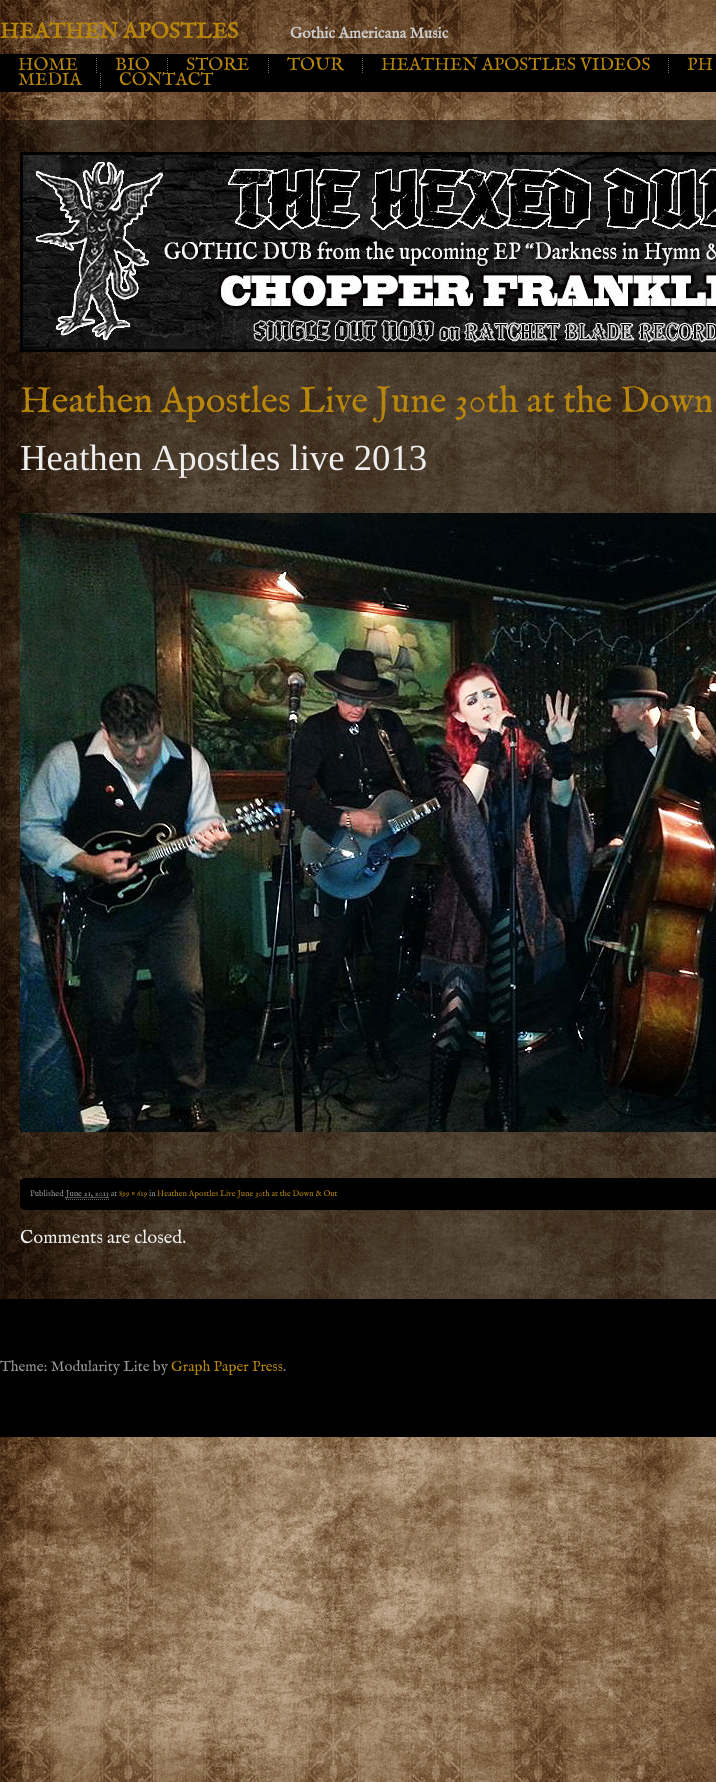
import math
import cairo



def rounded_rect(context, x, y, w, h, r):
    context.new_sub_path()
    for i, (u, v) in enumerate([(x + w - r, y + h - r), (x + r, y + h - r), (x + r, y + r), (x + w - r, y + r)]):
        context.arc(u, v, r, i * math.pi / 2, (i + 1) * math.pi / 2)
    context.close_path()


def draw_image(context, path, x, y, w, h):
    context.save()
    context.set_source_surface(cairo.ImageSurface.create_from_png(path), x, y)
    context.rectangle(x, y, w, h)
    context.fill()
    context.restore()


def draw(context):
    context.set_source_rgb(1, 1, 1)
    context.paint()
    draw_image(context, "images/1.png", 0, 0, 716, 1782)
    context.set_source_rgb(0, 0, 0)
    context.rectangle(0, 54, 716, 38)
    context.fill()
    context.new_path()
    context.move_to(96.5, 58)
    context.line_to(96.5, 73)
    context.set_source_rgb(102 / 255, 102 / 255, 102 / 255)
    context.set_line_width(1)
    context.set_dash([1, 1])
    context.stroke()
    context.new_path()
    context.move_to(167.5, 58)
    context.line_to(167.5, 73)
    context.stroke()
    context.new_path()
    context.move_to(268.5, 58)
    context.line_to(268.5, 73)
    context.stroke()
    context.new_path()
    context.move_to(362.5, 58)
    context.line_to(362.5, 73)
    context.stroke()
    context.new_path()
    context.move_to(668.5, 58)
    context.line_to(668.5, 73)
    context.stroke()
    context.new_path()
    context.move_to(100.5, 73)
    context.line_to(100.5, 88)
    context.stroke()
    context.set_source_rgba(0, 0, 0, 0.5)
    context.rectangle(0, 120, 716, 1179)
    context.fill()
    draw_image(context, "images/2.png", 20, 152, 696, 200)
    draw_image(context, "images/3.png", 20, 513, 696, 619)
    context.set_source_rgb(0, 0, 0)
    rounded_rect(context, 20, 1178, 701, 32, 5)
    context.fill()
    context.new_path()
    context.move_to(66, 1199.5)
    context.line_to(109, 1199.5)
    context.set_source_rgb(102 / 255, 102 / 255, 102 / 255)
    context.stroke()
    context.new_path()
    context.move_to(65.5, 1197.5)
    context.line_to(108.5, 1197.5)
    context.set_source_rgb(153 / 255, 153 / 255, 153 / 255)
    context.stroke()
    context.set_source_rgb(0, 0, 0)
    context.rectangle(0, 1299, 716, 138)
    context.fill()
    context.select_font_face("IM FELL English", cairo.FontSlant.NORMAL, cairo.FontWeight.BOLD)
    context.set_font_size(22)
    context.set_source_rgb(184 / 255, 134 / 255, 11 / 255)
    context.move_to(0, 38)
    context.show_text("HEATHEN APOSTLES")
    context.set_font_size(15.5)
    context.set_source_rgb(204 / 255, 204 / 255, 204 / 255)
    context.move_to(290, 38)
    context.show_text("Gothic Americana Music")
    context.select_font_face("IM FELL English")
    context.set_font_size(18)
    context.set_source_rgb(184 / 255, 134 / 255, 11 / 255)
    context.move_to(18, 70)
    context.show_text("HOME")
    context.move_to(115, 70)
    context.show_text("BIO")
    context.move_to(186, 70)
    context.show_text("STORE")
    context.move_to(287, 70)
    context.show_text("TOUR")
    context.move_to(381, 70)
    context.show_text("HEATHEN APOSTLES VIDEOS")
    context.move_to(687, 70)
    context.show_text("PH")
    context.move_to(18, 85)
    context.show_text("MEDIA")
    context.move_to(119, 85)
    context.show_text("CONTACT")
    context.set_font_size(36.75)
    context.move_to(20, 412)
    context.show_text("Heathen Apostles Live June 30th at the Down")
    context.select_font_face("Liberation Serif")
    context.set_source_rgb(238 / 255, 238 / 255, 238 / 255)
    context.move_to(20, 470)
    context.show_text("Heathen Apostles live 2013")
    context.select_font_face("IM FELL English")
    context.set_font_size(8.3)
    context.set_source_rgb(153 / 255, 153 / 255, 153 / 255)
    context.move_to(30, 1196)
    context.show_text("Published")
    context.move_to(66, 1196)
    context.show_text("June 21, 2013 at")
    context.set_source_rgb(184 / 255, 134 / 255, 11 / 255)
    context.move_to(119, 1196)
    context.show_text("899 × 619")
    context.set_source_rgb(153 / 255, 153 / 255, 153 / 255)
    context.move_to(149, 1196)
    context.show_text("in")
    context.set_source_rgb(184 / 255, 134 / 255, 11 / 255)
    context.move_to(157, 1196)
    context.show_text("Heathen Apostles Live June 30th at the Down & Out")
    context.set_font_size(18.5)
    context.set_source_rgb(238 / 255, 238 / 255, 238 / 255)
    context.move_to(20, 1243)
    context.show_text("Comments are closed.")
    context.set_font_size(14.75)
    context.set_source_rgb(153 / 255, 153 / 255, 153 / 255)
    context.move_to(0, 1371)
    context.show_text("Theme: Modularity Lite by")
    context.set_source_rgb(184 / 255, 134 / 255, 11 / 255)
    context.move_to(171, 1371)
    context.show_text("Graph Paper Press")
    context.set_source_rgb(153 / 255, 153 / 255, 153 / 255)
    context.move_to(283, 1371)
    context.show_text(".")


surface = cairo.ImageSurface(cairo.Format.RGB24, 716, 1782)
context = cairo.Context(surface)
options = cairo.FontOptions()
options.set_hint_metrics(cairo.HintMetrics.OFF)
options.set_hint_style(cairo.HintStyle.NONE)
context.set_font_options(options)
context.set_miter_limit(4)
draw(context)
surface.write_to_png("out.png")
